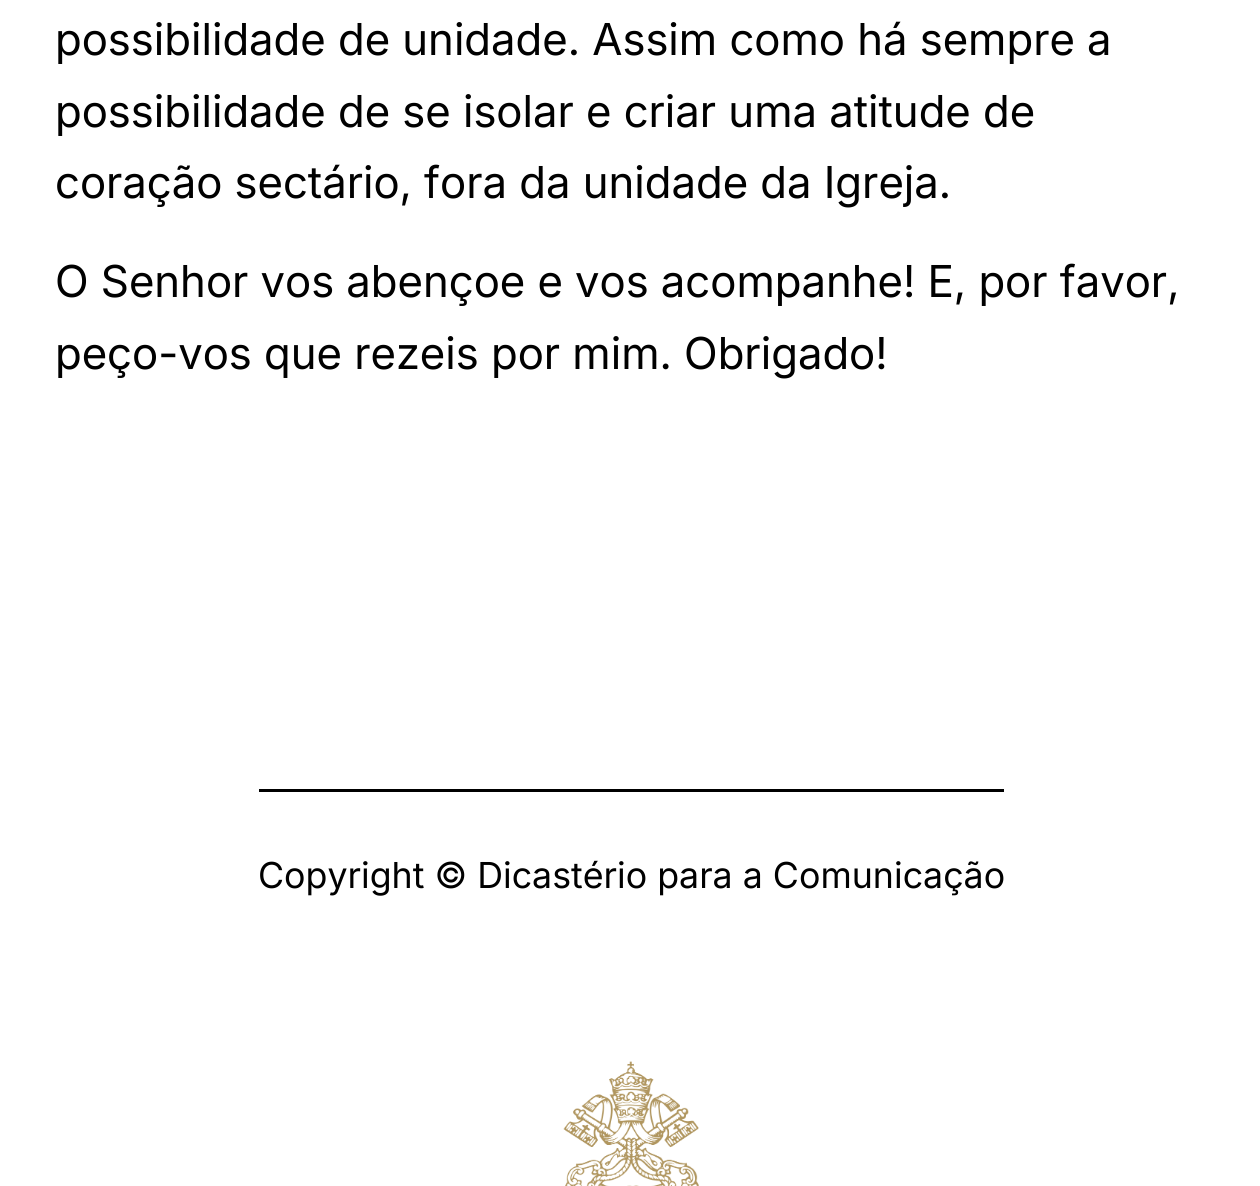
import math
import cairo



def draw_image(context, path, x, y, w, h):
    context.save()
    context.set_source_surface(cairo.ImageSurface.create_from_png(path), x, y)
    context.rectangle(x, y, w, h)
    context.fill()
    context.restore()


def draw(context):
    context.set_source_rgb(1, 1, 1)
    context.paint()
    context.set_source_rgb(0, 0, 0)
    context.rectangle(259, 789, 745, 3)
    context.fill()
    draw_image(context, "images/1.png", 563, 1061, 136, 125)
    context.select_font_face("Inter")
    context.set_font_size(44)
    context.move_to(55, 55)
    context.show_text("possibilidade de unidade. Assim como há sempre a")
    context.move_to(55, 127)
    context.show_text("possibilidade de se isolar e criar uma atitude de")
    context.move_to(55, 198)
    context.show_text("coração sectário, fora da unidade da Igreja.")
    context.move_to(55, 297)
    context.show_text("O Senhor vos abençoe e vos acompanhe! E, por favor,")
    context.move_to(55, 369)
    context.show_text("peço-vos que rezeis por mim. Obrigado!")
    context.select_font_face("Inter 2")
    context.set_font_size(35.75)
    context.move_to(258, 888)
    context.show_text("Copyright © Dicastério para a Comunicação")


surface = cairo.ImageSurface(cairo.Format.RGB24, 1260, 1186)
context = cairo.Context(surface)
options = cairo.FontOptions()
options.set_hint_metrics(cairo.HintMetrics.OFF)
options.set_hint_style(cairo.HintStyle.NONE)
context.set_font_options(options)
context.set_miter_limit(4)
draw(context)
surface.write_to_png("out.png")
